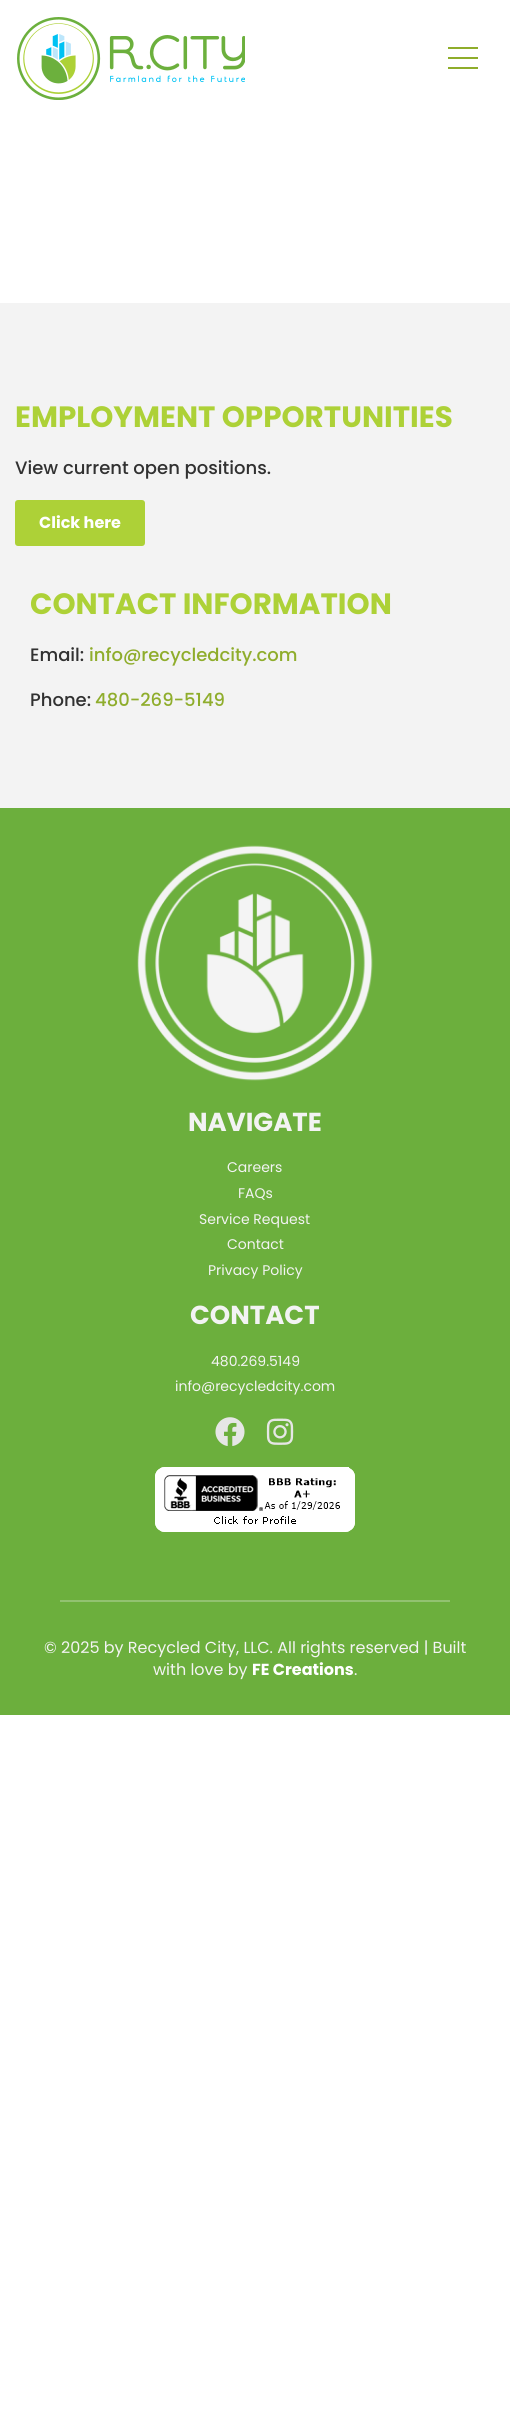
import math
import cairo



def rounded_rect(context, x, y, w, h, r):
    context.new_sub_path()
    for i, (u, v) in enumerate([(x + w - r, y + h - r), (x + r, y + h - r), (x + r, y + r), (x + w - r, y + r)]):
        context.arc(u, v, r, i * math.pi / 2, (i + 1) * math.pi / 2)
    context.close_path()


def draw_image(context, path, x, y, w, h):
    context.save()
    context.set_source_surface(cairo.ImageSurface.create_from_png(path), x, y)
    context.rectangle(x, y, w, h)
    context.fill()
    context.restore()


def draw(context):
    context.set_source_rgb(1, 1, 1)
    context.paint()
    draw_image(context, "images/1.png", 17, 17, 228, 83)
    context.set_source_rgb(143 / 255, 173 / 255, 43 / 255)
    context.rectangle(448, 57, 30, 2)
    context.fill()
    context.rectangle(448, 47, 30, 2)
    context.fill()
    context.rectangle(448, 67, 30, 2)
    context.fill()
    context.set_source_rgb(243 / 255, 243 / 255, 243 / 255)
    context.rectangle(0, 303, 510, 505)
    context.fill()
    context.set_source_rgb(173 / 255, 209 / 255, 55 / 255)
    rounded_rect(context, 15, 500, 130, 46, 3)
    context.fill()
    context.set_source_rgb(108 / 255, 175 / 255, 61 / 255)
    context.rectangle(0, 808, 510, 907)
    context.fill()
    draw_image(context, "images/2.png", 137, 845, 236, 236)
    draw_image(context, "images/3.png", 215, 1417, 30, 29)
    draw_image(context, "images/4.png", 266, 1418, 28, 27)
    draw_image(context, "images/5.png", 155, 1467, 200, 65)
    context.set_source_rgb(146 / 255, 194 / 255, 112 / 255)
    context.rectangle(60, 1600, 390, 2)
    context.fill()
    context.select_font_face("Poppins", cairo.FontSlant.NORMAL, cairo.FontWeight.BOLD)
    context.set_font_size(29.4)
    context.set_source_rgb(173 / 255, 209 / 255, 55 / 255)
    context.move_to(15, 427)
    context.show_text("EMPLOYMENT OPPORTUNITIES")
    context.select_font_face("Poppins Medium")
    context.set_font_size(18)
    context.set_source_rgb(49 / 255, 49 / 255, 49 / 255)
    context.move_to(15, 474)
    context.show_text("View current open positions.")
    context.select_font_face("Poppins", cairo.FontSlant.NORMAL, cairo.FontWeight.BOLD)
    context.set_font_size(16)
    context.set_source_rgb(1, 1, 1)
    context.move_to(39, 528)
    context.show_text("Click here")
    context.set_font_size(29.4)
    context.set_source_rgb(173 / 255, 209 / 255, 55 / 255)
    context.move_to(30, 614)
    context.show_text("CONTACT INFORMATION")
    context.select_font_face("Poppins Medium")
    context.set_font_size(18)
    context.set_source_rgb(49 / 255, 49 / 255, 49 / 255)
    context.move_to(30, 661)
    context.show_text("Email:")
    context.set_source_rgb(143 / 255, 173 / 255, 44 / 255)
    context.move_to(89, 661)
    context.show_text("info@recycledcity.com")
    context.set_source_rgb(49 / 255, 49 / 255, 49 / 255)
    context.move_to(30, 706)
    context.show_text("Phone:")
    context.set_source_rgb(143 / 255, 173 / 255, 44 / 255)
    context.move_to(95, 706)
    context.show_text("480-269-5149")
    context.select_font_face("Poppins", cairo.FontSlant.NORMAL, cairo.FontWeight.BOLD)
    context.set_font_size(26)
    context.set_source_rgb(243 / 255, 243 / 255, 243 / 255)
    context.move_to(188, 1131)
    context.show_text("NAVIGATE")
    context.select_font_face("Poppins")
    context.set_font_size(14)
    context.move_to(227, 1172)
    context.show_text("Careers")
    context.move_to(238, 1198)
    context.show_text("FAQs")
    context.move_to(199, 1224)
    context.show_text("Service Request")
    context.move_to(227, 1249)
    context.show_text("Contact")
    context.move_to(208, 1275)
    context.show_text("Privacy Policy")
    context.select_font_face("Poppins", cairo.FontSlant.NORMAL, cairo.FontWeight.BOLD)
    context.set_font_size(26)
    context.move_to(190, 1324)
    context.show_text("CONTACT")
    context.select_font_face("Poppins")
    context.set_font_size(14)
    context.move_to(211, 1366)
    context.show_text("480.269.5149")
    context.move_to(175, 1391)
    context.show_text("info@recycledcity.com")
    context.set_font_size(16)
    context.move_to(44, 1653)
    context.show_text("© 2025 by Recycled City, LLC. All rights reserved | Built")
    context.move_to(153, 1675)
    context.show_text("with love by")
    context.select_font_face("Poppins", cairo.FontSlant.NORMAL, cairo.FontWeight.BOLD)
    context.set_source_rgb(1, 1, 1)
    context.move_to(252, 1675)
    context.show_text("FE Creations")
    context.select_font_face("Poppins")
    context.set_source_rgb(243 / 255, 243 / 255, 243 / 255)
    context.move_to(354, 1675)
    context.show_text(".")


surface = cairo.ImageSurface(cairo.Format.RGB24, 510, 2409)
context = cairo.Context(surface)
options = cairo.FontOptions()
options.set_hint_metrics(cairo.HintMetrics.OFF)
options.set_hint_style(cairo.HintStyle.NONE)
context.set_font_options(options)
context.set_miter_limit(4)
draw(context)
surface.write_to_png("out.png")
